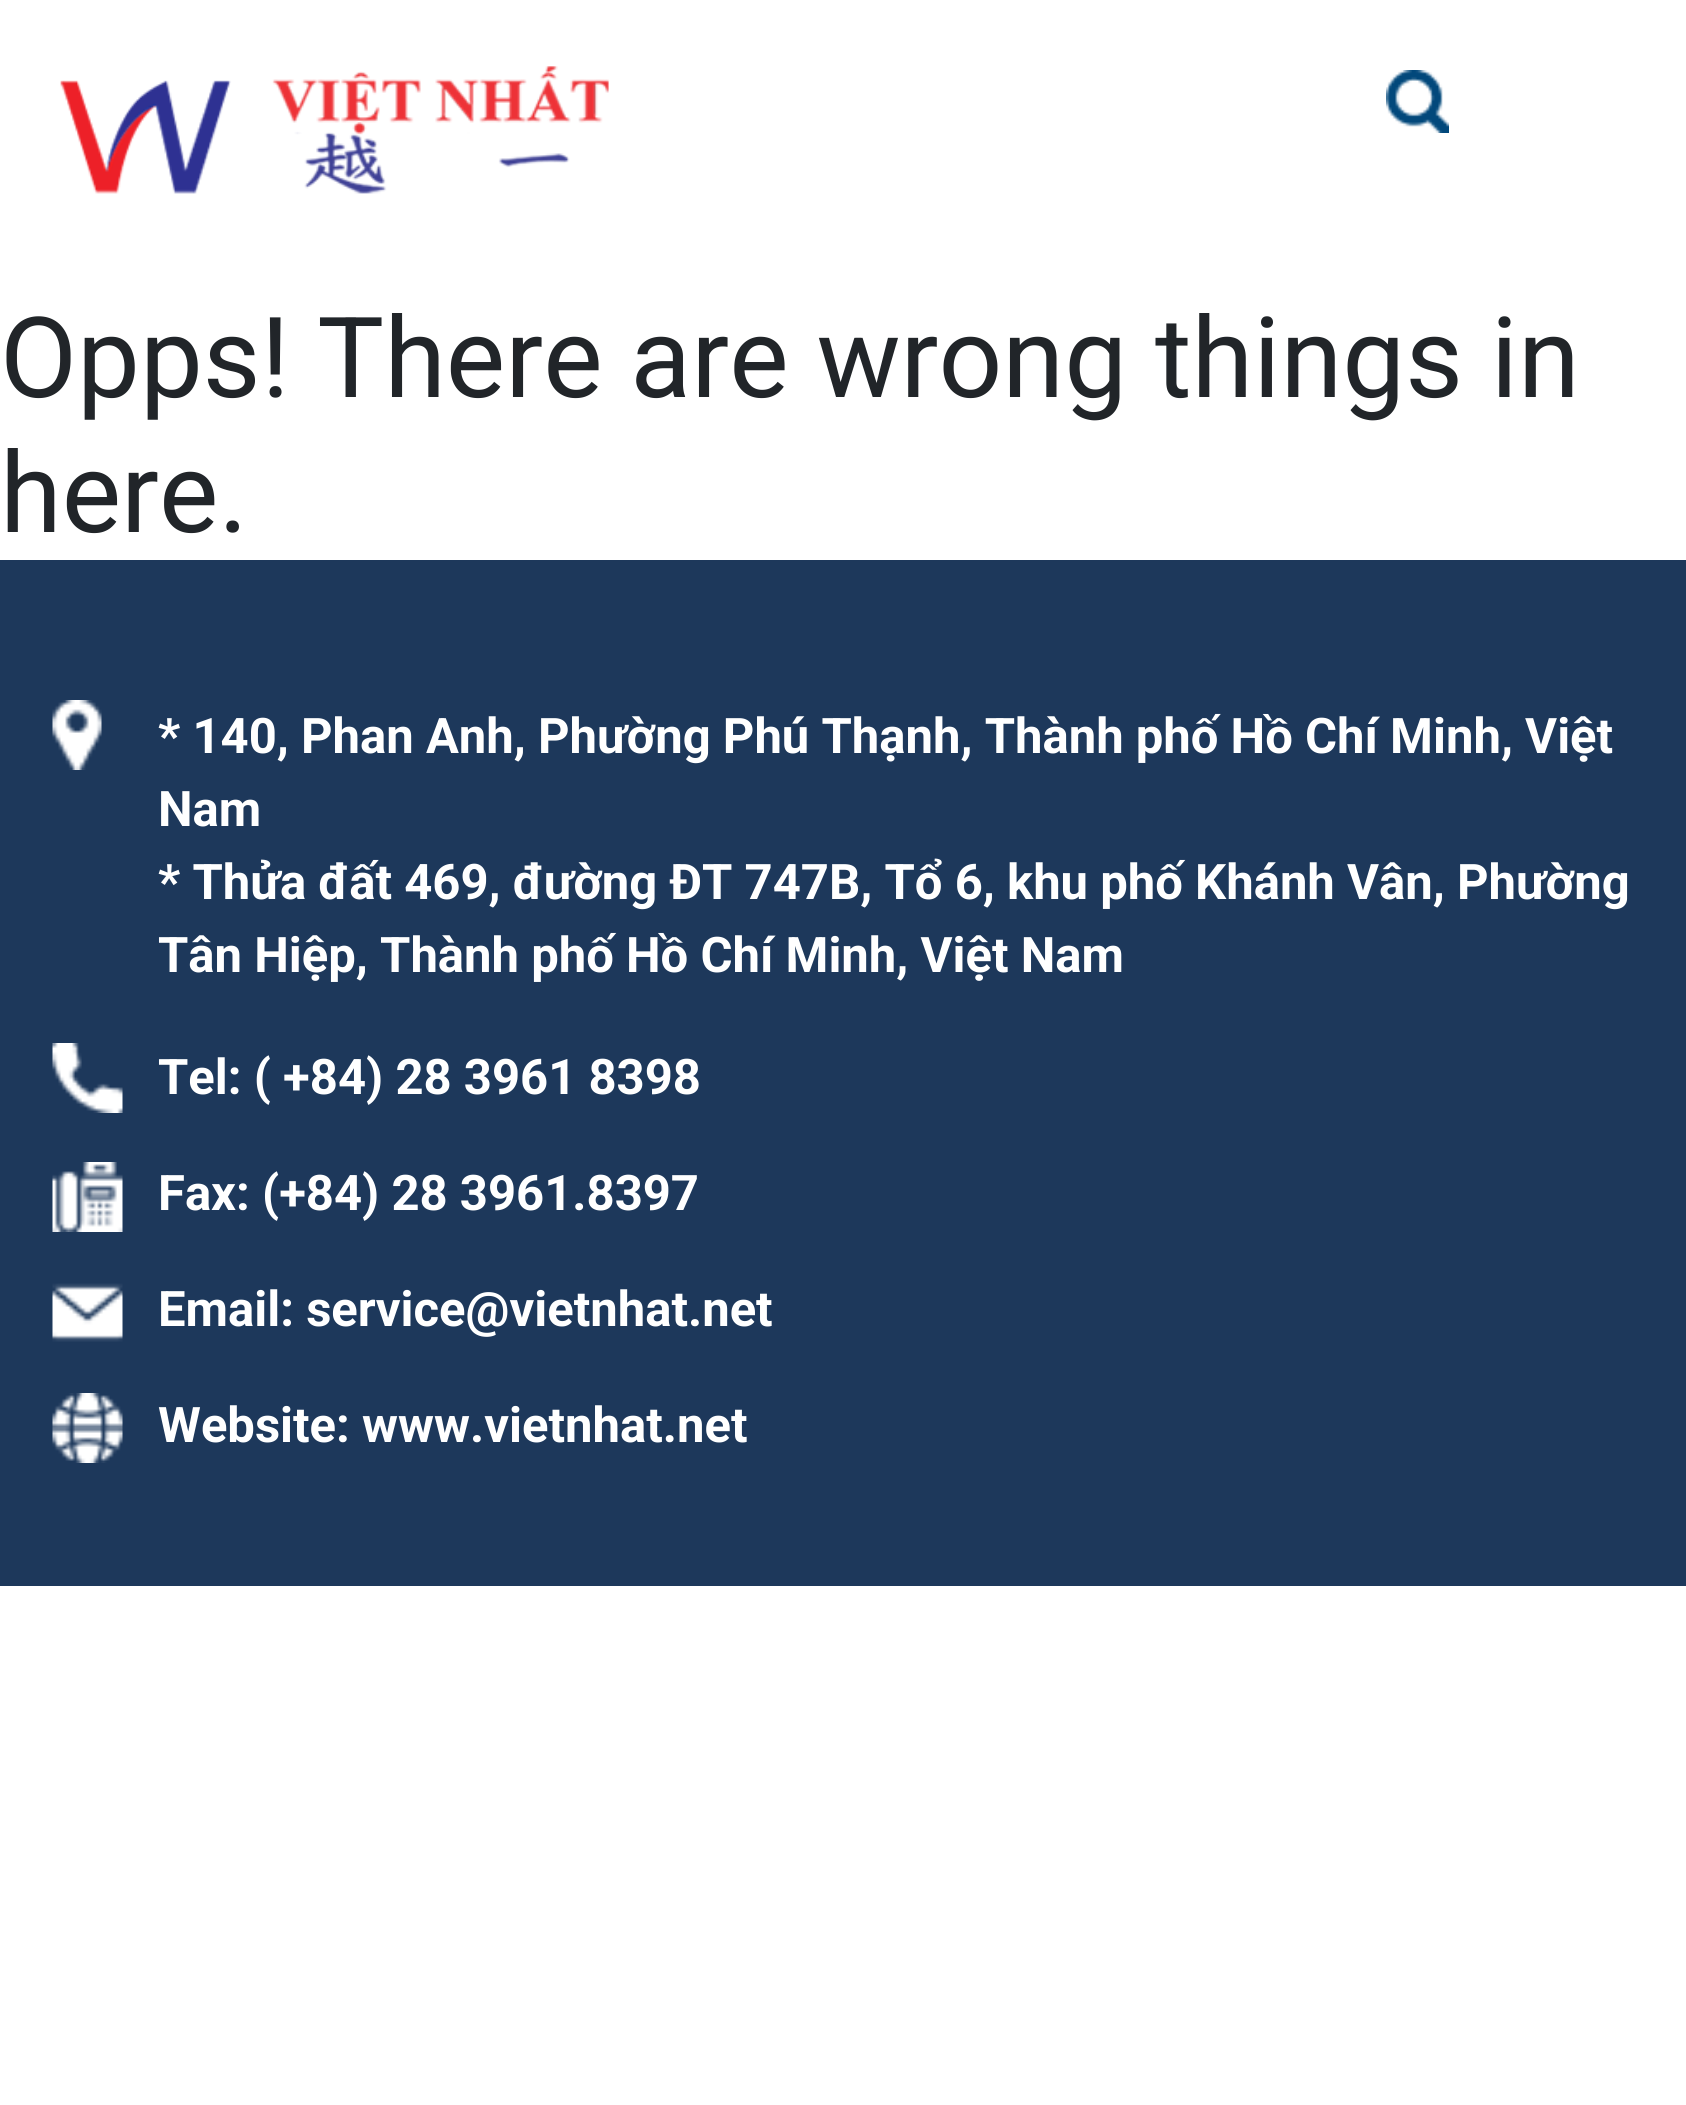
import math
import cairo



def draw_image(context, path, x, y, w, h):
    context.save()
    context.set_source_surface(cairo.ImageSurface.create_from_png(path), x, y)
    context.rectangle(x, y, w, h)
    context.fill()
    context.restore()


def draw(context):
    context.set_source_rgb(1, 1, 1)
    context.paint()
    draw_image(context, "images/1.png", 60, 66, 549, 128)
    draw_image(context, "images/2.png", 1386, 70, 63, 63)
    context.set_source_rgb(29 / 255, 56 / 255, 91 / 255)
    context.rectangle(0, 560, 1686, 1026)
    context.fill()
    draw_image(context, "images/3.png", 52, 700, 50, 70)
    draw_image(context, "images/4.png", 52, 1043, 71, 70)
    draw_image(context, "images/5.png", 52, 1162, 71, 70)
    draw_image(context, "images/6.png", 52, 1283, 71, 59)
    draw_image(context, "images/7.png", 52, 1393, 71, 70)
    context.select_font_face("Roboto")
    context.set_font_size(112)
    context.set_source_rgb(33 / 255, 37 / 255, 41 / 255)
    context.move_to(0, 397)
    context.show_text("Opps! There are wrong things in")
    context.move_to(0, 532)
    context.show_text("here.")
    context.select_font_face("Roboto", cairo.FontSlant.NORMAL, cairo.FontWeight.BOLD)
    context.set_font_size(49)
    context.set_source_rgb(1, 1, 1)
    context.move_to(158, 753)
    context.show_text("* 140, Phan Anh, Phường Phú Thạnh, Thành phố Hồ Chí Minh, Việt")
    context.move_to(158, 826)
    context.show_text("Nam")
    context.move_to(158, 899)
    context.show_text("* Thửa đất 469, đường ĐT 747B, Tổ 6, khu phố Khánh Vân, Phường")
    context.move_to(158, 972)
    context.show_text("Tân Hiệp, Thành phố Hồ Chí Minh, Việt Nam")
    context.move_to(158, 1094)
    context.show_text("Tel: ( +84) 28 3961 8398")
    context.move_to(158, 1210)
    context.show_text("Fax: (+84) 28 3961.8397")
    context.move_to(158, 1326)
    context.show_text("Email: service@vietnhat.net")
    context.move_to(158, 1442)
    context.show_text("Website: www.vietnhat.net")


surface = cairo.ImageSurface(cairo.Format.RGB24, 1686, 2105)
context = cairo.Context(surface)
options = cairo.FontOptions()
options.set_hint_metrics(cairo.HintMetrics.OFF)
options.set_hint_style(cairo.HintStyle.NONE)
context.set_font_options(options)
context.set_miter_limit(4)
draw(context)
surface.write_to_png("out.png")
